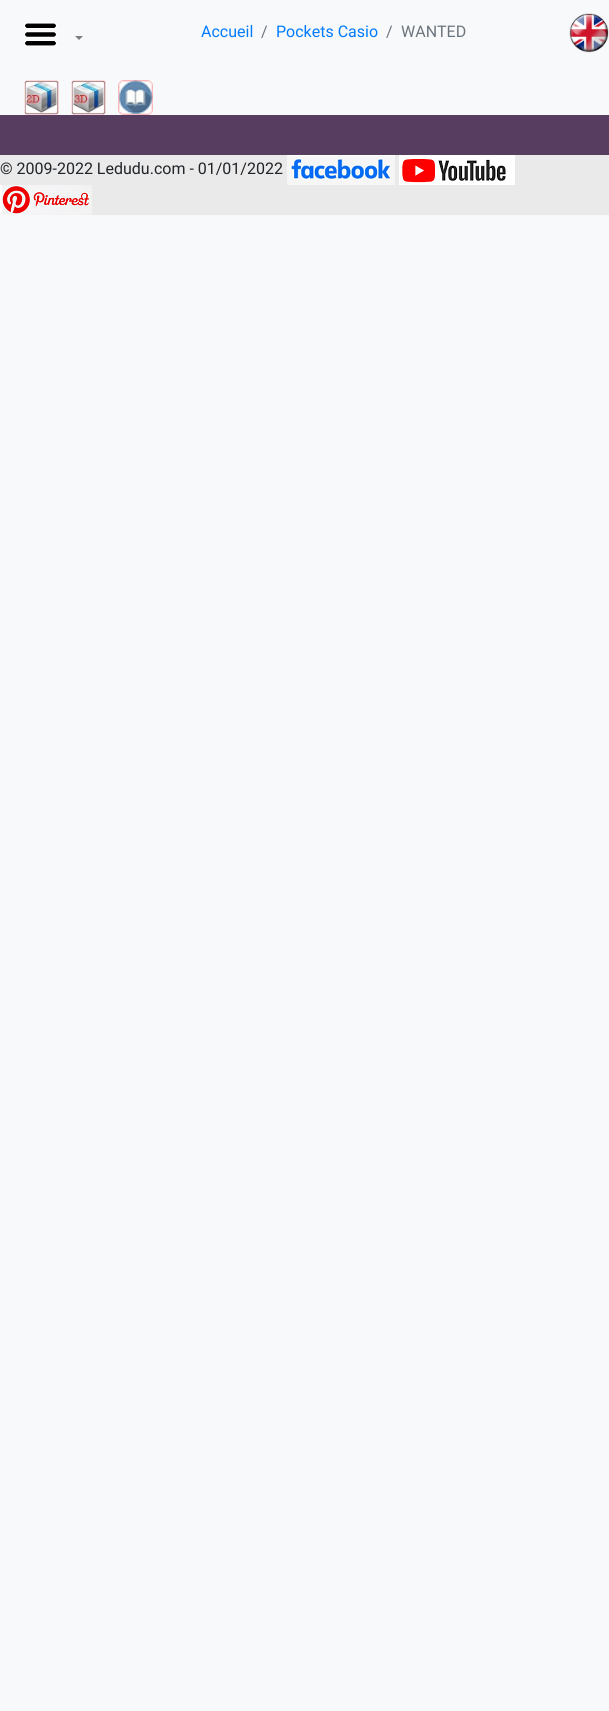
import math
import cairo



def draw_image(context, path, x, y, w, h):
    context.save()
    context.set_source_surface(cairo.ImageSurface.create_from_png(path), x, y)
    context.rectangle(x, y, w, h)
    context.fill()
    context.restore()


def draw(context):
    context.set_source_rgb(248 / 255, 249 / 255, 250 / 255)
    context.paint()
    draw_image(context, "images/1.png", 24, 22, 33, 25)
    context.set_source_rgb(124 / 255, 125 / 255, 125 / 255)
    context.new_path()
    context.move_to(75, 36)
    context.line_to(83, 36)
    context.line_to(79, 40)
    context.close_path()
    context.fill()
    draw_image(context, "images/2.png", 569, 13, 40, 40)
    draw_image(context, "images/3.png", 24, 80, 35, 35)
    draw_image(context, "images/4.png", 71, 80, 35, 35)
    draw_image(context, "images/5.png", 118, 80, 35, 35)
    context.set_source_rgb(87 / 255, 61 / 255, 95 / 255)
    context.rectangle(0, 115, 609, 40)
    context.fill()
    context.set_source_rgb(234 / 255, 234 / 255, 234 / 255)
    context.rectangle(0, 155, 609, 60)
    context.fill()
    draw_image(context, "images/6.png", 287, 155, 108, 30)
    draw_image(context, "images/7.png", 399, 155, 116, 30)
    draw_image(context, "images/8.png", 0, 185, 92, 30)
    context.select_font_face("Roboto")
    context.set_font_size(16)
    context.set_source_rgb(0, 123 / 255, 1)
    context.move_to(201, 37)
    context.show_text("Accueil")
    context.set_source_rgb(108 / 255, 117 / 255, 125 / 255)
    context.move_to(261, 37)
    context.show_text("/")
    context.set_source_rgb(0, 123 / 255, 1)
    context.move_to(276, 37)
    context.show_text("Pockets Casio")
    context.set_source_rgb(108 / 255, 117 / 255, 125 / 255)
    context.move_to(386, 37)
    context.show_text("/")
    context.move_to(401, 37)
    context.show_text("WANTED")
    context.set_source_rgb(33 / 255, 37 / 255, 41 / 255)
    context.move_to(0, 174)
    context.show_text("© 2009-2022 Ledudu.com - 01/01/2022")


surface = cairo.ImageSurface(cairo.Format.RGB24, 609, 1711)
context = cairo.Context(surface)
options = cairo.FontOptions()
options.set_hint_metrics(cairo.HintMetrics.OFF)
options.set_hint_style(cairo.HintStyle.NONE)
context.set_font_options(options)
context.set_miter_limit(4)
draw(context)
surface.write_to_png("out.png")
